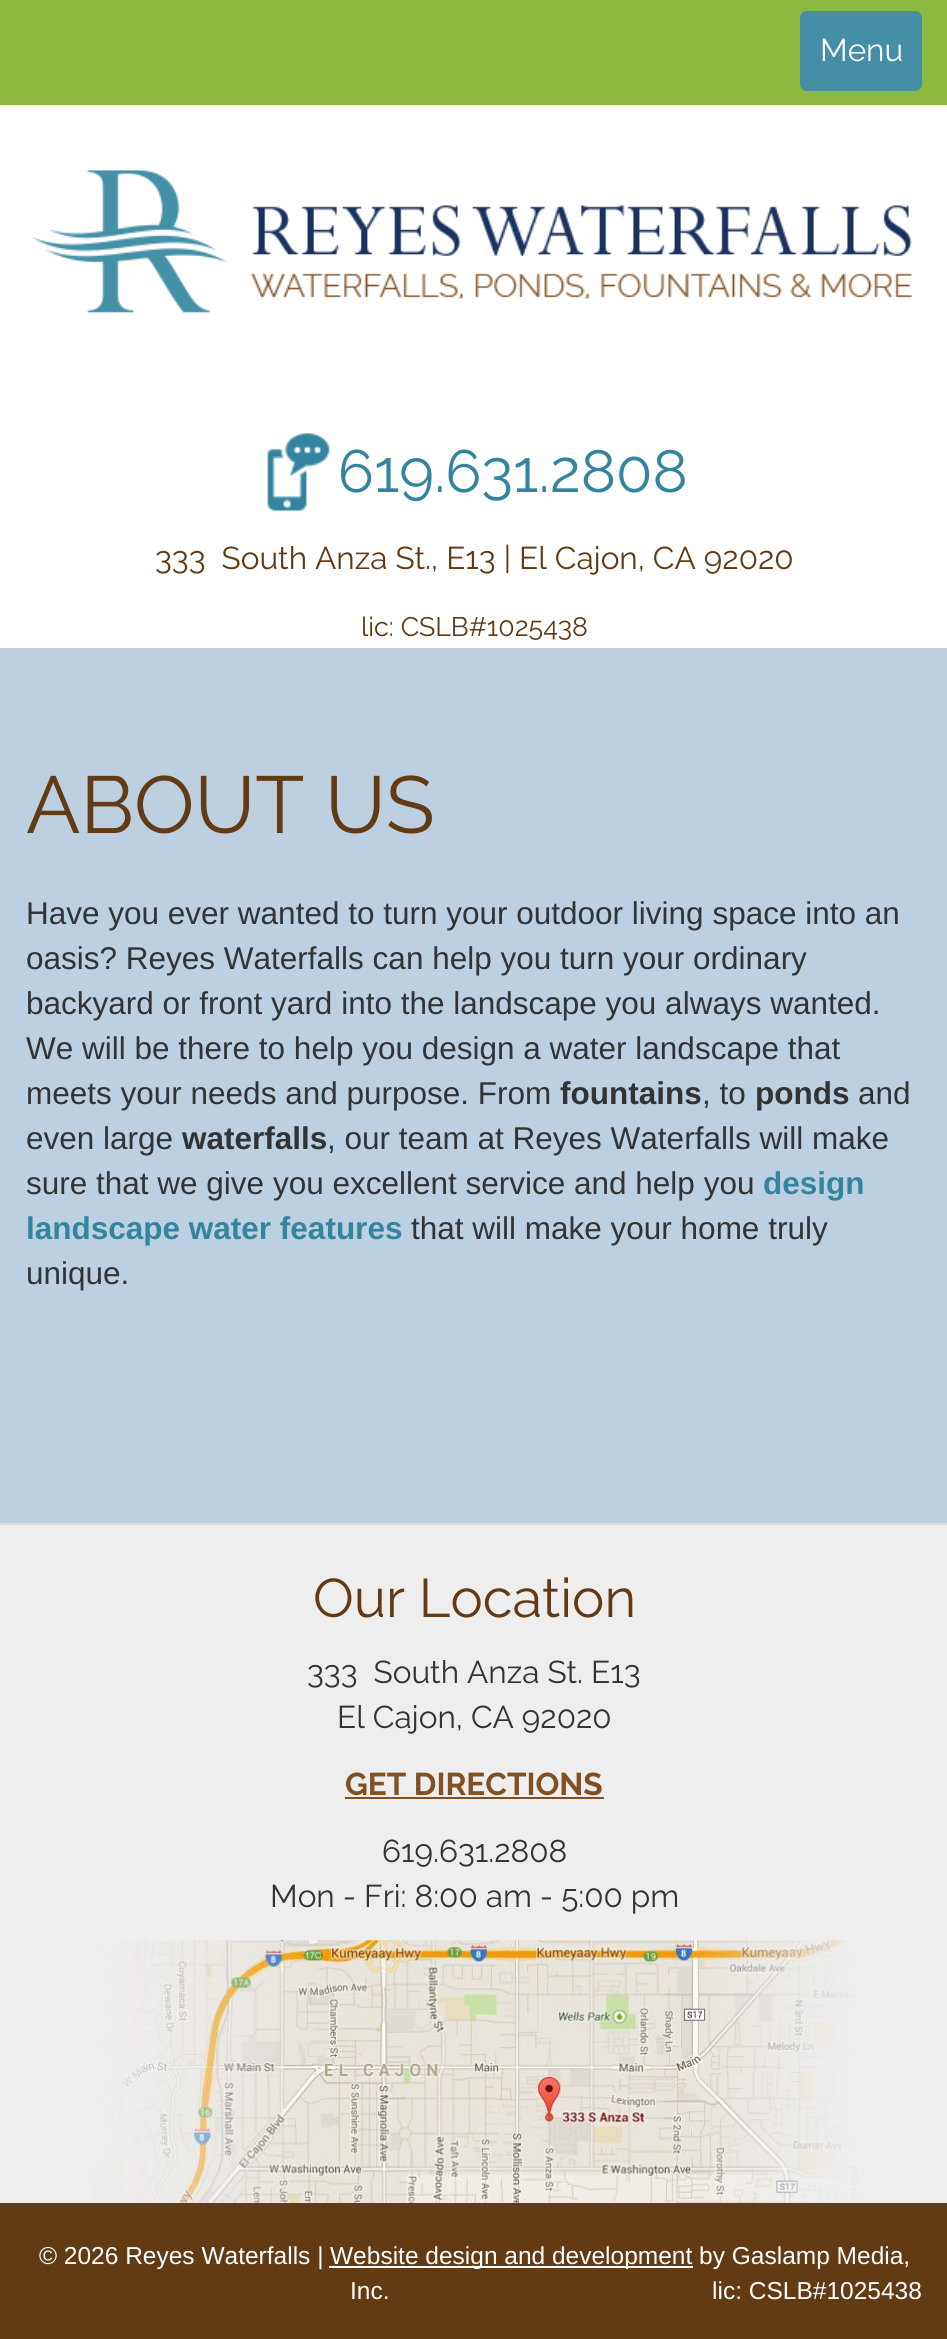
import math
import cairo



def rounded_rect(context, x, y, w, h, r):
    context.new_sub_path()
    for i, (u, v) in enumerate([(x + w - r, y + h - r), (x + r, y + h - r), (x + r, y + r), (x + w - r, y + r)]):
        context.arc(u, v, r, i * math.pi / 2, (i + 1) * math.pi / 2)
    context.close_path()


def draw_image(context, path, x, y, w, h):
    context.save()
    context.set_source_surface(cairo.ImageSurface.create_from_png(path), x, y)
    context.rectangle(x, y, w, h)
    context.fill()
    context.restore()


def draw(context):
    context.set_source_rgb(98 / 255, 58 / 255, 20 / 255)
    context.paint()
    context.set_source_rgb(139 / 255, 184 / 255, 62 / 255)
    context.rectangle(0, 0, 947, 105)
    context.fill()
    context.set_source_rgb(68 / 255, 143 / 255, 165 / 255)
    rounded_rect(context, 801, 12, 120, 78, 6)
    context.fill_preserve()
    context.stroke()
    context.set_source_rgb(1, 1, 1)
    context.rectangle(0, 105, 947, 543)
    context.fill()
    draw_image(context, "images/1.png", 32, 170, 880, 143)
    draw_image(context, "images/2.png", 267, 433, 63, 78)
    context.set_source_rgb(189 / 255, 208 / 255, 225 / 255)
    context.rectangle(0, 648, 947, 875)
    context.fill()
    context.set_source_rgb(238 / 255, 238 / 255, 239 / 255)
    context.rectangle(0, 1525, 947, 678)
    context.fill()
    context.set_source_rgb(221 / 255, 221 / 255, 221 / 255)
    context.rectangle(0, 1523, 947, 2)
    context.fill()
    context.set_source_rgb(129 / 255, 79 / 255, 32 / 255)
    context.rectangle(345, 1797, 259, 2)
    context.fill()
    draw_image(context, "images/3.png", 91, 1940, 767, 263)
    context.set_source_rgb(1, 1, 1)
    context.rectangle(329, 2266, 364, 2)
    context.fill()
    context.select_font_face("Raleway")
    context.set_font_size(31.5)
    context.move_to(820, 61)
    context.show_text("Menu")
    context.set_font_size(59.5)
    context.set_source_rgb(51 / 255, 132 / 255, 159 / 255)
    context.move_to(338, 492)
    context.show_text("619.631.2808")
    context.set_font_size(31.5)
    context.set_source_rgb(98 / 255, 58 / 255, 20 / 255)
    context.move_to(155, 569)
    context.show_text("333  South Anza St., E13 | El Cajon, CA 92020")
    context.set_font_size(26.75)
    context.move_to(361, 636)
    context.show_text("lic: CSLB#1025438")
    context.set_font_size(80.5)
    context.move_to(26, 833)
    context.show_text("ABOUT US")
    context.select_font_face("Liberation Sans")
    context.set_font_size(31.5)
    context.set_source_rgb(51 / 255, 51 / 255, 51 / 255)
    context.move_to(26, 924)
    context.show_text("Have you ever wanted to turn your outdoor living space into an")
    context.move_to(26, 969)
    context.show_text("oasis? Reyes Waterfalls can help you turn your ordinary")
    context.move_to(26, 1014)
    context.show_text("backyard or front yard into the landscape you always wanted.")
    context.move_to(26, 1059)
    context.show_text("We will be there to help you design a water landscape that")
    context.move_to(26, 1104)
    context.show_text("meets your needs and purpose. From")
    context.select_font_face("Liberation Sans", cairo.FontSlant.NORMAL, cairo.FontWeight.BOLD)
    context.move_to(560, 1104)
    context.show_text("fountains")
    context.select_font_face("Liberation Sans")
    context.move_to(702, 1104)
    context.show_text(", to")
    context.select_font_face("Liberation Sans", cairo.FontSlant.NORMAL, cairo.FontWeight.BOLD)
    context.move_to(755, 1104)
    context.show_text("ponds")
    context.select_font_face("Liberation Sans")
    context.move_to(858, 1104)
    context.show_text("and")
    context.move_to(26, 1149)
    context.show_text("even large")
    context.select_font_face("Liberation Sans", cairo.FontSlant.NORMAL, cairo.FontWeight.BOLD)
    context.move_to(182, 1149)
    context.show_text("waterfalls")
    context.select_font_face("Liberation Sans")
    context.move_to(327, 1149)
    context.show_text(", our team at Reyes Waterfalls will make")
    context.move_to(26, 1194)
    context.show_text("sure that we give you excellent service and help you")
    context.select_font_face("Liberation Sans", cairo.FontSlant.NORMAL, cairo.FontWeight.BOLD)
    context.set_source_rgb(51 / 255, 132 / 255, 159 / 255)
    context.move_to(763, 1194)
    context.show_text("design")
    context.move_to(26, 1239)
    context.show_text("landscape water features")
    context.select_font_face("Liberation Sans")
    context.set_source_rgb(51 / 255, 51 / 255, 51 / 255)
    context.move_to(411, 1239)
    context.show_text("that will make your home truly")
    context.move_to(26, 1284)
    context.show_text("unique.")
    context.select_font_face("Raleway")
    context.set_font_size(54.25)
    context.set_source_rgb(98 / 255, 58 / 255, 20 / 255)
    context.move_to(313, 1617)
    context.show_text("Our Location")
    context.set_font_size(31.5)
    context.set_source_rgb(51 / 255, 51 / 255, 51 / 255)
    context.move_to(307, 1683)
    context.show_text("333  South Anza St. E13")
    context.move_to(337, 1728)
    context.show_text("El Cajon, CA 92020")
    context.select_font_face("Raleway", cairo.FontSlant.NORMAL, cairo.FontWeight.BOLD)
    context.set_source_rgb(129 / 255, 79 / 255, 32 / 255)
    context.move_to(345, 1795)
    context.show_text("GET DIRECTIONS")
    context.select_font_face("Raleway")
    context.set_source_rgb(51 / 255, 51 / 255, 51 / 255)
    context.move_to(382, 1862)
    context.show_text("619.631.2808")
    context.move_to(270, 1907)
    context.show_text("Mon - Fri: 8:00 am - 5:00 pm")
    context.select_font_face("Liberation Sans")
    context.set_font_size(24.5)
    context.set_source_rgb(1, 1, 1)
    context.move_to(39, 2264)
    context.show_text("© 2026 Reyes Waterfalls |")
    context.move_to(330, 2264)
    context.show_text("Website design and development by Gaslamp Media,")
    context.move_to(350, 2299)
    context.show_text("Inc.")
    context.move_to(712, 2299)
    context.show_text("lic: CSLB#1025438")


surface = cairo.ImageSurface(cairo.Format.RGB24, 947, 2339)
context = cairo.Context(surface)
options = cairo.FontOptions()
options.set_hint_metrics(cairo.HintMetrics.OFF)
options.set_hint_style(cairo.HintStyle.NONE)
context.set_font_options(options)
context.set_miter_limit(4)
draw(context)
surface.write_to_png("out.png")
